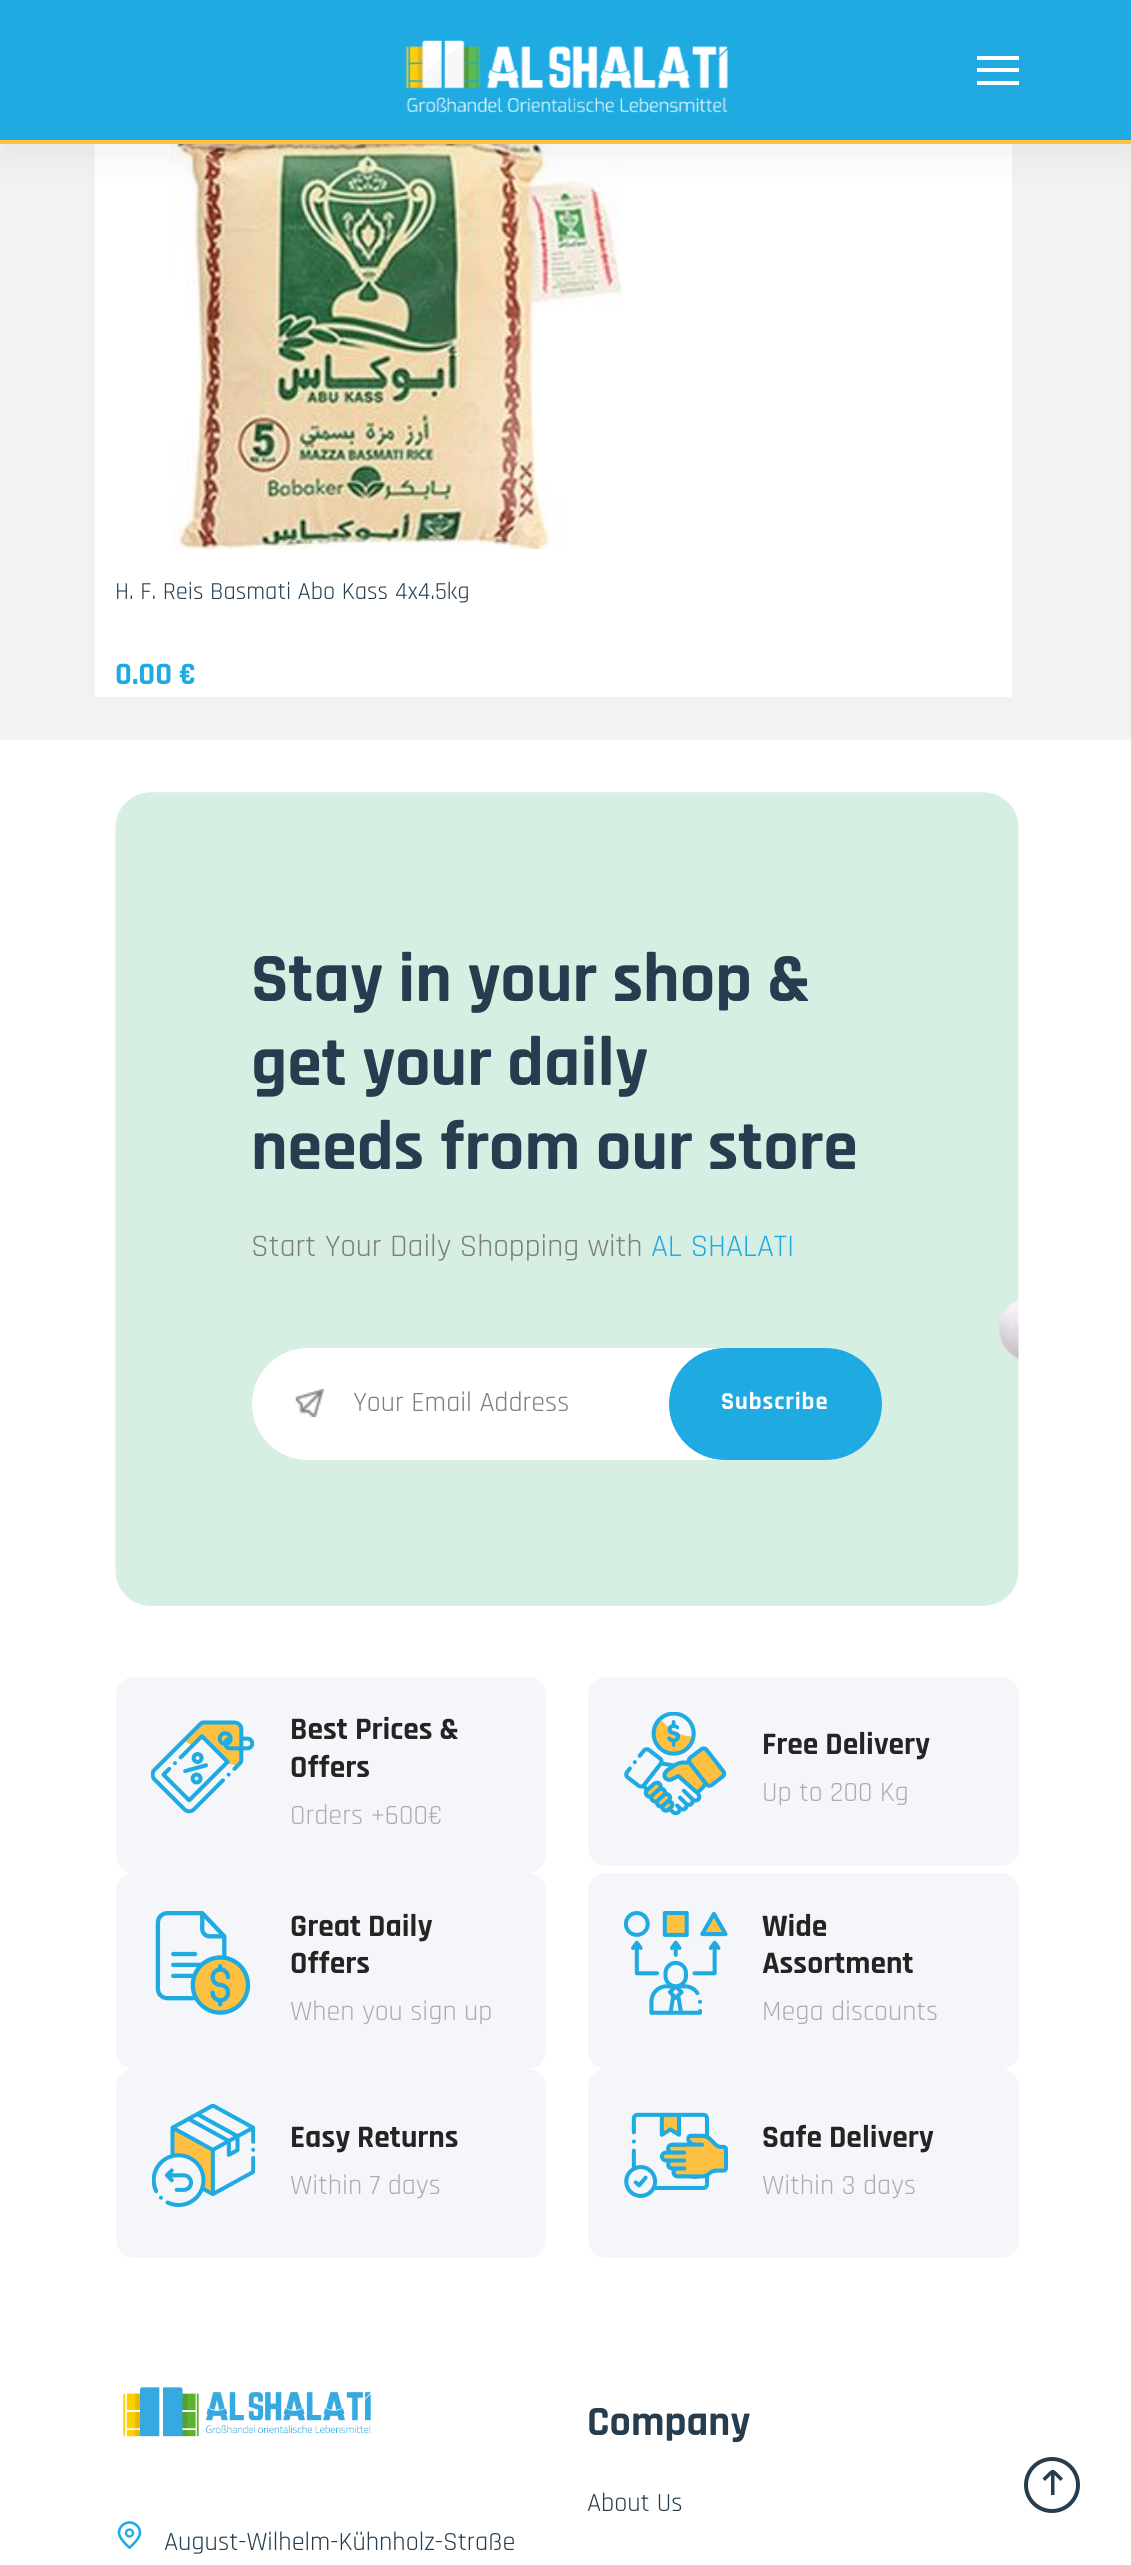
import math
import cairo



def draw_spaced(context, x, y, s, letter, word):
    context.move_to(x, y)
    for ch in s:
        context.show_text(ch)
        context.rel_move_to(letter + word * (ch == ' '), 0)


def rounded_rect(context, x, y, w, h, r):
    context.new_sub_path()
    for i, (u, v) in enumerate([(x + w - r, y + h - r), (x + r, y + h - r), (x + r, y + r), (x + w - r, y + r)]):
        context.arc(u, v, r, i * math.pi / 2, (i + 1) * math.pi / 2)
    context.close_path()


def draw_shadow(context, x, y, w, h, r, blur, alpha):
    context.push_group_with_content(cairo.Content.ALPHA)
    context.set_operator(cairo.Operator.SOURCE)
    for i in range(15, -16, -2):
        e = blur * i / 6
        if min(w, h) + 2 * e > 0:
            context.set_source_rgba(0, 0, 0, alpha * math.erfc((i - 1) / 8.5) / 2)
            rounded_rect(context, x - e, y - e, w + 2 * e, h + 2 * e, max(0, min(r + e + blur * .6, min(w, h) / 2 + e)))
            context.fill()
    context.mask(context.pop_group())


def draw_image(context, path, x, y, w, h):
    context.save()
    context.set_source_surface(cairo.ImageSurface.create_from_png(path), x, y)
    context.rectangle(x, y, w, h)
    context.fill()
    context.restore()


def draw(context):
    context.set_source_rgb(1, 1, 1)
    context.paint()
    context.set_source_rgb(242 / 255, 242 / 255, 242 / 255)
    context.rectangle(0, 144, 1131, 596)
    context.fill()
    context.set_source_rgb(1, 1, 1)
    context.rectangle(95, 144, 917, 553)
    context.fill()
    draw_image(context, "images/2.png", 171, 144, 452, 405)
    context.set_source_rgb(0, 0, 0)
    draw_shadow(context, 0, 14, 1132, 144, 0, 17.5, 0.05)
    context.set_source_rgb(31 / 255, 171 / 255, 226 / 255)
    context.rectangle(0, 0, 1131, 140)
    context.fill()
    context.set_source_rgb(253 / 255, 192 / 255, 64 / 255)
    context.rectangle(0, 140, 1131, 4)
    context.fill()
    draw_image(context, "images/1.png", 405, 40, 323, 73)
    context.set_source_rgb(1, 1, 1)
    context.rectangle(977, 56, 42, 4)
    context.fill()
    context.rectangle(977, 68, 42, 4)
    context.fill()
    context.rectangle(977, 81, 42, 4)
    context.fill()
    draw_image(context, "images/3.png", 115, 792, 904, 814)
    rounded_rect(context, 252, 1348, 630, 112, 56)
    context.fill()
    draw_image(context, "images/4.png", 295, 1389, 29, 28)
    context.set_source_rgb(31 / 255, 171 / 255, 226 / 255)
    rounded_rect(context, 669, 1348, 213, 112, 56)
    context.fill()
    context.set_source_rgb(244 / 255, 246 / 255, 250 / 255)
    rounded_rect(context, 116, 1677, 430, 196, 18)
    context.fill()
    draw_image(context, "images/5.png", 151, 1720, 103, 94)
    rounded_rect(context, 588, 1677, 431, 189, 18)
    context.fill()
    draw_image(context, "images/6.png", 624, 1712, 103, 103)
    rounded_rect(context, 116, 1873, 430, 196, 18)
    context.fill()
    draw_image(context, "images/7.png", 155, 1911, 96, 104)
    rounded_rect(context, 588, 1873, 431, 196, 18)
    context.fill()
    draw_image(context, "images/8.png", 624, 1911, 104, 104)
    rounded_rect(context, 116, 2069, 430, 189, 18)
    context.fill()
    draw_image(context, "images/9.png", 152, 2104, 103, 103)
    rounded_rect(context, 588, 2069, 431, 189, 18)
    context.fill()
    draw_image(context, "images/10.png", 624, 2112, 104, 86)
    draw_image(context, "images/11.png", 123, 2387, 248, 50)
    draw_image(context, "images/12.png", 117, 2521, 25, 28)
    context.arc(1052, 2485, 26, 0, 2 * math.pi)
    context.set_source_rgb(37 / 255, 61 / 255, 78 / 255)
    context.set_line_width(4)
    context.stroke()
    context.new_path()
    context.move_to(1063, 2478.5)
    context.curve_to(1051.5, 2467, 1054, 2467, 1042.5, 2478.5)
    context.line_to(1045, 2481)
    context.line_to(1051, 2475)
    context.line_to(1051, 2495)
    context.line_to(1054.5, 2495)
    context.line_to(1054.5, 2475)
    context.line_to(1060.5, 2481)
    context.close_path()
    context.fill()
    context.select_font_face("Rajdhani")
    context.set_font_size(24.5)
    context.move_to(115, 599)
    context.show_text("H. F. Reis Basmati Abo Kass 4x4.5kg")
    context.select_font_face("Rajdhani", cairo.FontSlant.NORMAL, cairo.FontWeight.BOLD)
    context.set_font_size(31.5)
    context.set_source_rgb(31 / 255, 171 / 255, 226 / 255)
    context.move_to(115, 684)
    context.show_text("0.00 €")
    context.set_font_size(70)
    context.set_source_rgb(37 / 255, 61 / 255, 78 / 255)
    context.move_to(251, 1001)
    context.show_text("Stay in your shop &")
    context.move_to(251, 1085)
    context.show_text("get your daily")
    context.move_to(251, 1169)
    context.show_text("needs from our store")
    context.select_font_face("Rajdhani")
    context.set_font_size(31.5)
    context.set_source_rgb(126 / 255, 126 / 255, 126 / 255)
    context.move_to(251, 1256)
    context.show_text("Start Your Daily Shopping with")
    context.set_source_rgb(31 / 255, 171 / 255, 226 / 255)
    context.move_to(651, 1256)
    context.show_text("AL SHALATI")
    context.set_font_size(28)
    context.set_source_rgb(126 / 255, 126 / 255, 126 / 255)
    context.move_to(353, 1411)
    context.show_text("Your Email Address")
    context.select_font_face("Rajdhani", cairo.FontSlant.NORMAL, cairo.FontWeight.BOLD)
    context.set_font_size(24.5)
    context.set_source_rgb(1, 1, 1)
    draw_spaced(context, 721, 1409, "Subscribe", 0.9, 0)
    context.set_font_size(31.5)
    context.set_source_rgb(36 / 255, 36 / 255, 36 / 255)
    context.move_to(290, 1739)
    context.show_text("Best Prices &")
    context.move_to(290, 1777)
    context.show_text("Offers")
    context.select_font_face("Rajdhani")
    context.set_font_size(28)
    context.set_source_rgb(173 / 255, 173 / 255, 173 / 255)
    context.move_to(290, 1824)
    context.show_text("Orders +600€")
    context.select_font_face("Rajdhani", cairo.FontSlant.NORMAL, cairo.FontWeight.BOLD)
    context.set_font_size(31.5)
    context.set_source_rgb(36 / 255, 36 / 255, 36 / 255)
    context.move_to(762, 1754)
    context.show_text("Free Delivery")
    context.select_font_face("Rajdhani")
    context.set_font_size(28)
    context.set_source_rgb(173 / 255, 173 / 255, 173 / 255)
    context.move_to(762, 1801)
    context.show_text("Up to 200 Kg")
    context.select_font_face("Rajdhani", cairo.FontSlant.NORMAL, cairo.FontWeight.BOLD)
    context.set_font_size(31.5)
    context.set_source_rgb(36 / 255, 36 / 255, 36 / 255)
    context.move_to(290, 1936)
    context.show_text("Great Daily")
    context.move_to(290, 1973)
    context.show_text("Offers")
    context.select_font_face("Rajdhani")
    context.set_font_size(28)
    context.set_source_rgb(173 / 255, 173 / 255, 173 / 255)
    context.move_to(290, 2020)
    context.show_text("When you sign up")
    context.select_font_face("Rajdhani", cairo.FontSlant.NORMAL, cairo.FontWeight.BOLD)
    context.set_font_size(31.5)
    context.set_source_rgb(36 / 255, 36 / 255, 36 / 255)
    context.move_to(762, 1936)
    context.show_text("Wide")
    context.move_to(762, 1973)
    context.show_text("Assortment")
    context.select_font_face("Rajdhani")
    context.set_font_size(28)
    context.set_source_rgb(173 / 255, 173 / 255, 173 / 255)
    context.move_to(762, 2020)
    context.show_text("Mega discounts")
    context.select_font_face("Rajdhani", cairo.FontSlant.NORMAL, cairo.FontWeight.BOLD)
    context.set_font_size(31.5)
    context.set_source_rgb(36 / 255, 36 / 255, 36 / 255)
    context.move_to(290, 2147)
    context.show_text("Easy Returns")
    context.select_font_face("Rajdhani")
    context.set_font_size(28)
    context.set_source_rgb(173 / 255, 173 / 255, 173 / 255)
    context.move_to(290, 2194)
    context.show_text("Within 7 days")
    context.select_font_face("Rajdhani", cairo.FontSlant.NORMAL, cairo.FontWeight.BOLD)
    context.set_font_size(31.5)
    context.set_source_rgb(36 / 255, 36 / 255, 36 / 255)
    context.move_to(762, 2147)
    context.show_text("Safe Delivery")
    context.select_font_face("Rajdhani")
    context.set_font_size(28)
    context.set_source_rgb(173 / 255, 173 / 255, 173 / 255)
    context.move_to(762, 2194)
    context.show_text("Within 3 days")
    context.select_font_face("Rajdhani", cairo.FontSlant.NORMAL, cairo.FontWeight.BOLD)
    context.set_font_size(42)
    context.set_source_rgb(37 / 255, 61 / 255, 78 / 255)
    context.move_to(587, 2435)
    context.show_text("Company")
    context.select_font_face("Rajdhani")
    context.set_font_size(26.25)
    context.move_to(587, 2511)
    context.show_text("About Us")
    context.move_to(164, 2550)
    context.show_text("August-Wilhelm-Kühnholz-Straße")


surface = cairo.ImageSurface(cairo.Format.RGB24, 1131, 2565)
context = cairo.Context(surface)
options = cairo.FontOptions()
options.set_hint_metrics(cairo.HintMetrics.OFF)
options.set_hint_style(cairo.HintStyle.NONE)
context.set_font_options(options)
context.set_miter_limit(4)
draw(context)
surface.write_to_png("out.png")
